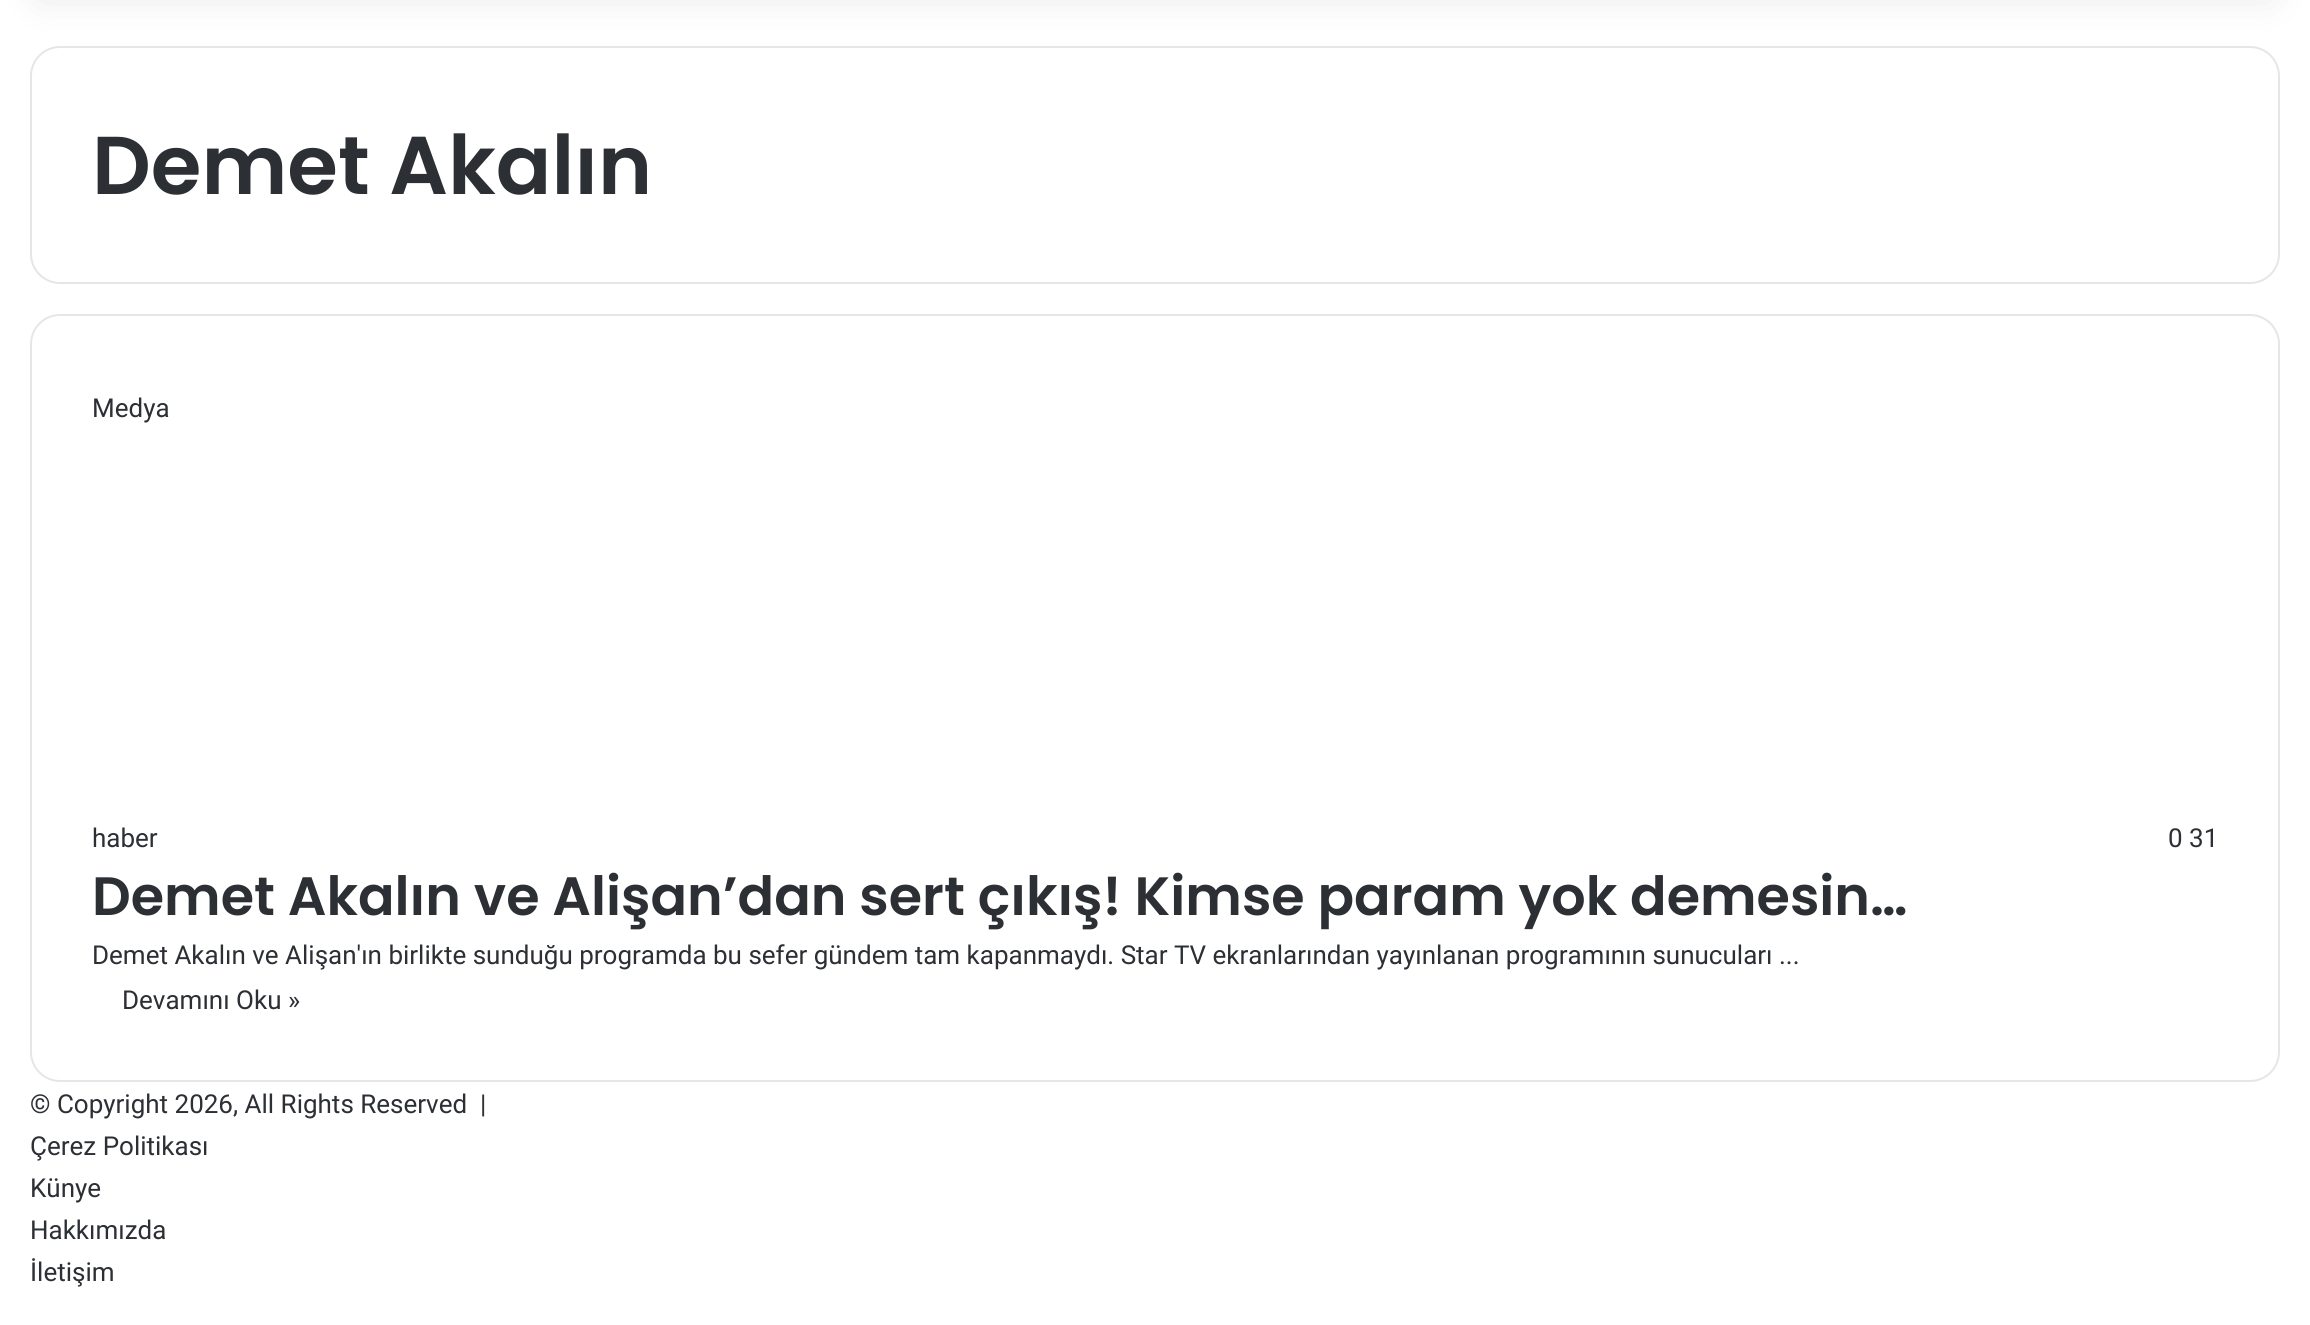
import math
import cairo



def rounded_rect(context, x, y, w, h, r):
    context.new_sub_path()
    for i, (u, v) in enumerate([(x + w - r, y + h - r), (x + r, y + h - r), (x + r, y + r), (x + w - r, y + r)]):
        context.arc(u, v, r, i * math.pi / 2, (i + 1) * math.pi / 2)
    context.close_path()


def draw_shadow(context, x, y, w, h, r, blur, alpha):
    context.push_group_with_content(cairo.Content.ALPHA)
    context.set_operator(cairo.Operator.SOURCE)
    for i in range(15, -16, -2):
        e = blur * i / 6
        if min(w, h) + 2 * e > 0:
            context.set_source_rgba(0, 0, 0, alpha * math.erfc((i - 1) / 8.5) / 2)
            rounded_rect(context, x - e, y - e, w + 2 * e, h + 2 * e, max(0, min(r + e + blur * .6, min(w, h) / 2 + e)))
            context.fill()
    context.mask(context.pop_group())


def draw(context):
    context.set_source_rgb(1, 1, 1)
    context.paint()
    rounded_rect(context, 31, 47, 2248, 236, 29)
    context.set_source_rgb(230 / 255, 230 / 255, 230 / 255)
    context.stroke()
    context.set_source_rgb(0, 0, 0)
    draw_shadow(context, 40, -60, 2230, 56, 0, 20, 0.1)
    rounded_rect(context, 31, 315, 2248, 766, 29)
    context.set_source_rgb(230 / 255, 230 / 255, 230 / 255)
    context.stroke()
    context.select_font_face("Poppins SemiBold")
    context.set_font_size(82)
    context.set_source_rgb(44 / 255, 47 / 255, 52 / 255)
    context.move_to(92, 194)
    context.show_text("Demet Akalın")
    context.select_font_face("Roboto")
    context.set_font_size(26)
    context.move_to(92, 417)
    context.show_text("Medya")
    context.move_to(92, 847)
    context.show_text("haber")
    context.move_to(2168, 847)
    context.show_text("0 31")
    context.select_font_face("Poppins SemiBold")
    context.set_font_size(54)
    context.move_to(92, 915)
    context.show_text("Demet Akalın ve Alişan’dan sert çıkış! Kimse param yok demesin…")
    context.select_font_face("Roboto")
    context.set_font_size(26)
    context.move_to(92, 964)
    context.show_text("Demet Akalın ve Alişan'ın birlikte sunduğu programda bu sefer gündem tam kapanmaydı. Star TV ekranlarından yayınlanan programının sunucuları ...")
    context.move_to(122, 1009)
    context.show_text("Devamını Oku »")
    context.move_to(30, 1113)
    context.show_text("© Copyright 2026, All Rights Reserved  |")
    context.move_to(30, 1155)
    context.show_text("Çerez Politikası")
    context.move_to(30, 1197)
    context.show_text("Künye")
    context.move_to(30, 1239)
    context.show_text("Hakkımızda")
    context.move_to(30, 1281)
    context.show_text("İletişim")


surface = cairo.ImageSurface(cairo.Format.RGB24, 2310, 1325)
context = cairo.Context(surface)
options = cairo.FontOptions()
options.set_hint_metrics(cairo.HintMetrics.OFF)
options.set_hint_style(cairo.HintStyle.NONE)
context.set_font_options(options)
context.set_miter_limit(4)
draw(context)
surface.write_to_png("out.png")
